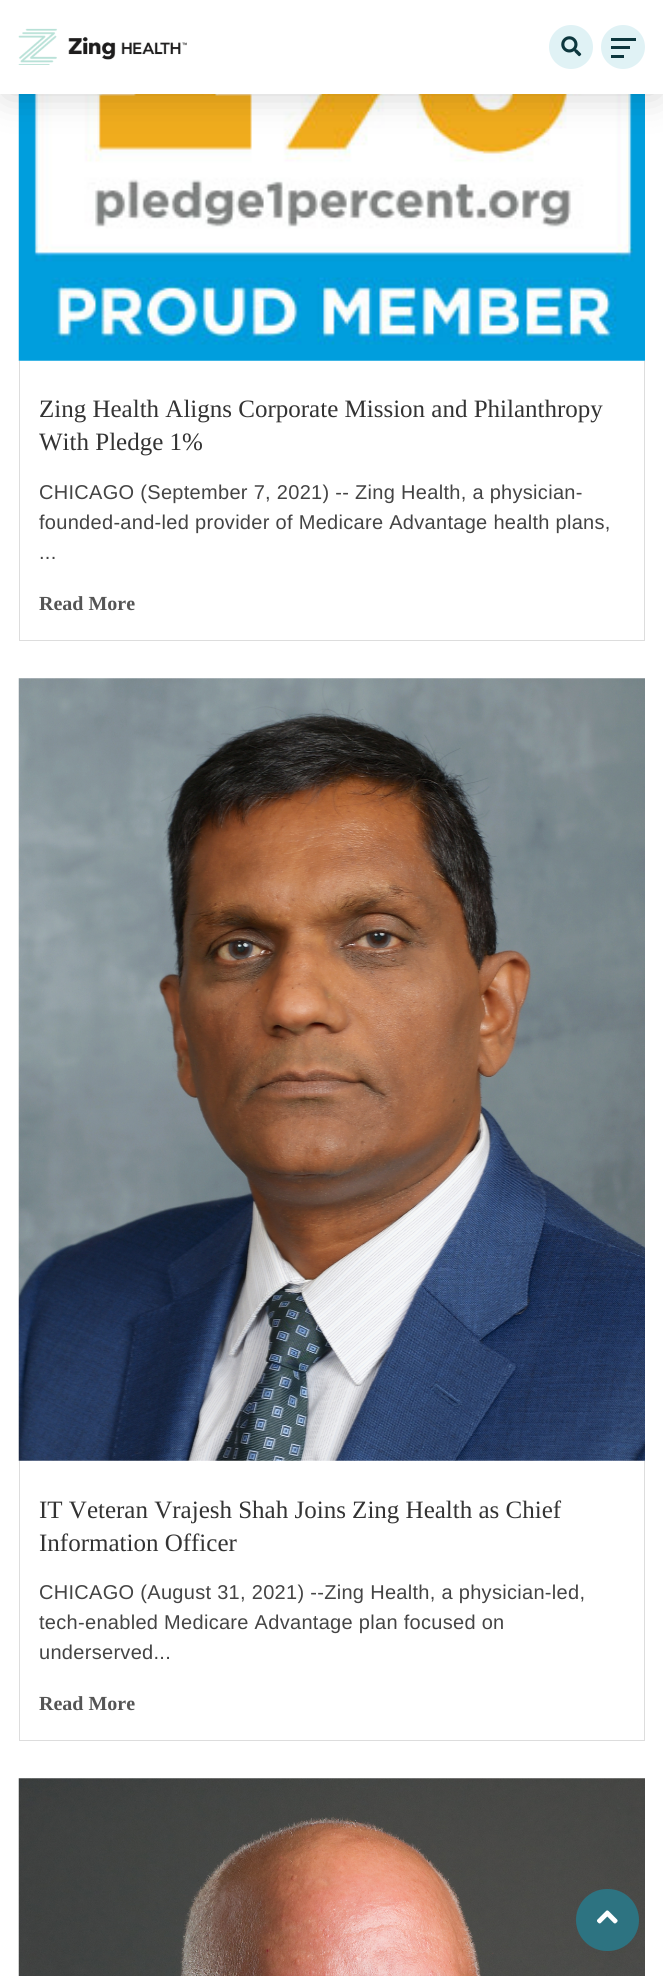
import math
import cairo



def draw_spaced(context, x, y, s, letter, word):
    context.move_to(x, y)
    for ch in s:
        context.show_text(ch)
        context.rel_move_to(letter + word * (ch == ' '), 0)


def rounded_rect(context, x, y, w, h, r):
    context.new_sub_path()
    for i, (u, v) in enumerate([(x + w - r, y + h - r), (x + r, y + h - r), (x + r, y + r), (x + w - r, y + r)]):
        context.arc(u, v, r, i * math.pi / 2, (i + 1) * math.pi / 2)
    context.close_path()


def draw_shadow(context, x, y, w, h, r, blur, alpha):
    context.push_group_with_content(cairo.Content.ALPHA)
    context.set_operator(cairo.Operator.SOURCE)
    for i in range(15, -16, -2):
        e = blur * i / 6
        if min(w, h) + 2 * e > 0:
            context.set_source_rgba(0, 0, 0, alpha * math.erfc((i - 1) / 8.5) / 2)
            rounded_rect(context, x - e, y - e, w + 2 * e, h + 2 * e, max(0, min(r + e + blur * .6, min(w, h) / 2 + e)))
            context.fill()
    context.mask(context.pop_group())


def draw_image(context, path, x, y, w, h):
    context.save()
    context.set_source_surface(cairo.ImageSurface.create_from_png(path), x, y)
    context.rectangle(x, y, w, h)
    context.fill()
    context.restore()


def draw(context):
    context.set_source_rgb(1, 1, 1)
    context.paint()
    draw_image(context, "images/3.png", 18, 94, 627, 267)
    context.set_source_rgb(0, 0, 0)
    draw_shadow(context, 6, 11, 652, 82, 0, 19, 0.2)
    context.set_source_rgb(1, 1, 1)
    context.rectangle(0, 0, 663, 94)
    context.fill()
    draw_image(context, "images/1.png", 18, 28, 169, 37)
    context.set_source_rgb(224 / 255, 242 / 255, 245 / 255)
    context.arc(571, 47, 22, 0, 2 * math.pi)
    context.fill()
    draw_image(context, "images/2.png", 561, 36, 21, 21)
    context.arc(623, 47, 22, 0, 2 * math.pi)
    context.fill()
    context.set_source_rgb(13 / 255, 55 / 255, 62 / 255)
    context.rectangle(611, 38, 25, 3)
    context.fill()
    context.rectangle(611, 46, 19, 3)
    context.fill()
    context.rectangle(611, 55, 13, 3)
    context.fill()
    context.set_source_rgb(221 / 255, 221 / 255, 221 / 255)
    context.rectangle(644, 361, 1, 280)
    context.fill()
    context.rectangle(19, 640, 626, 1)
    context.fill()
    context.rectangle(19, 361, 1, 280)
    context.fill()
    draw_image(context, "images/4.png", 18, 678, 627, 783)
    context.rectangle(644, 1461, 1, 280)
    context.fill()
    context.rectangle(19, 1740, 626, 1)
    context.fill()
    context.rectangle(19, 1461, 1, 280)
    context.fill()
    draw_image(context, "images/5.png", 18, 1778, 627, 198)
    context.set_source_rgb(45 / 255, 115 / 255, 129 / 255)
    rounded_rect(context, 576, 1889, 63, 62, 31)
    context.fill()
    draw_image(context, "images/6.png", 597, 1910, 21, 14)
    context.select_font_face("Liberation Serif")
    context.set_font_size(25)
    context.set_source_rgb(51 / 255, 51 / 255, 51 / 255)
    context.move_to(39, 417)
    context.show_text("Zing Health Aligns Corporate Mission and Philanthropy")
    context.move_to(39, 450)
    context.show_text("With Pledge 1%")
    context.select_font_face("Liberation Sans")
    context.set_font_size(20)
    context.set_source_rgb(68 / 255, 68 / 255, 68 / 255)
    draw_spaced(context, 39, 499, "CHICAGO (September 7, 2021) -- Zing Health, a physician-", 0.3, 0)
    draw_spaced(context, 39, 529, "founded-and-led provider of Medicare Advantage health plans,", 0.3, 0)
    draw_spaced(context, 39, 559, "...", 0.3, 0)
    context.select_font_face("Liberation Serif", cairo.FontSlant.NORMAL, cairo.FontWeight.BOLD)
    context.set_source_rgb(85 / 255, 85 / 255, 85 / 255)
    context.move_to(39, 610)
    context.show_text("Read More")
    context.select_font_face("Liberation Serif")
    context.set_font_size(25)
    context.set_source_rgb(51 / 255, 51 / 255, 51 / 255)
    context.move_to(39, 1518)
    context.show_text("IT Veteran Vrajesh Shah Joins Zing Health as Chief")
    context.move_to(39, 1551)
    context.show_text("Information Officer")
    context.select_font_face("Liberation Sans")
    context.set_font_size(20)
    context.set_source_rgb(68 / 255, 68 / 255, 68 / 255)
    draw_spaced(context, 39, 1599, "CHICAGO (August 31, 2021) --Zing Health, a physician-led,", 0.3, 0)
    draw_spaced(context, 39, 1629, "tech-enabled Medicare Advantage plan focused on", 0.3, 0)
    draw_spaced(context, 39, 1659, "underserved...", 0.3, 0)
    context.select_font_face("Liberation Serif", cairo.FontSlant.NORMAL, cairo.FontWeight.BOLD)
    context.set_source_rgb(85 / 255, 85 / 255, 85 / 255)
    context.move_to(39, 1710)
    context.show_text("Read More")


surface = cairo.ImageSurface(cairo.Format.RGB24, 663, 1976)
context = cairo.Context(surface)
options = cairo.FontOptions()
options.set_hint_metrics(cairo.HintMetrics.OFF)
options.set_hint_style(cairo.HintStyle.NONE)
context.set_font_options(options)
context.set_miter_limit(4)
draw(context)
surface.write_to_png("out.png")
